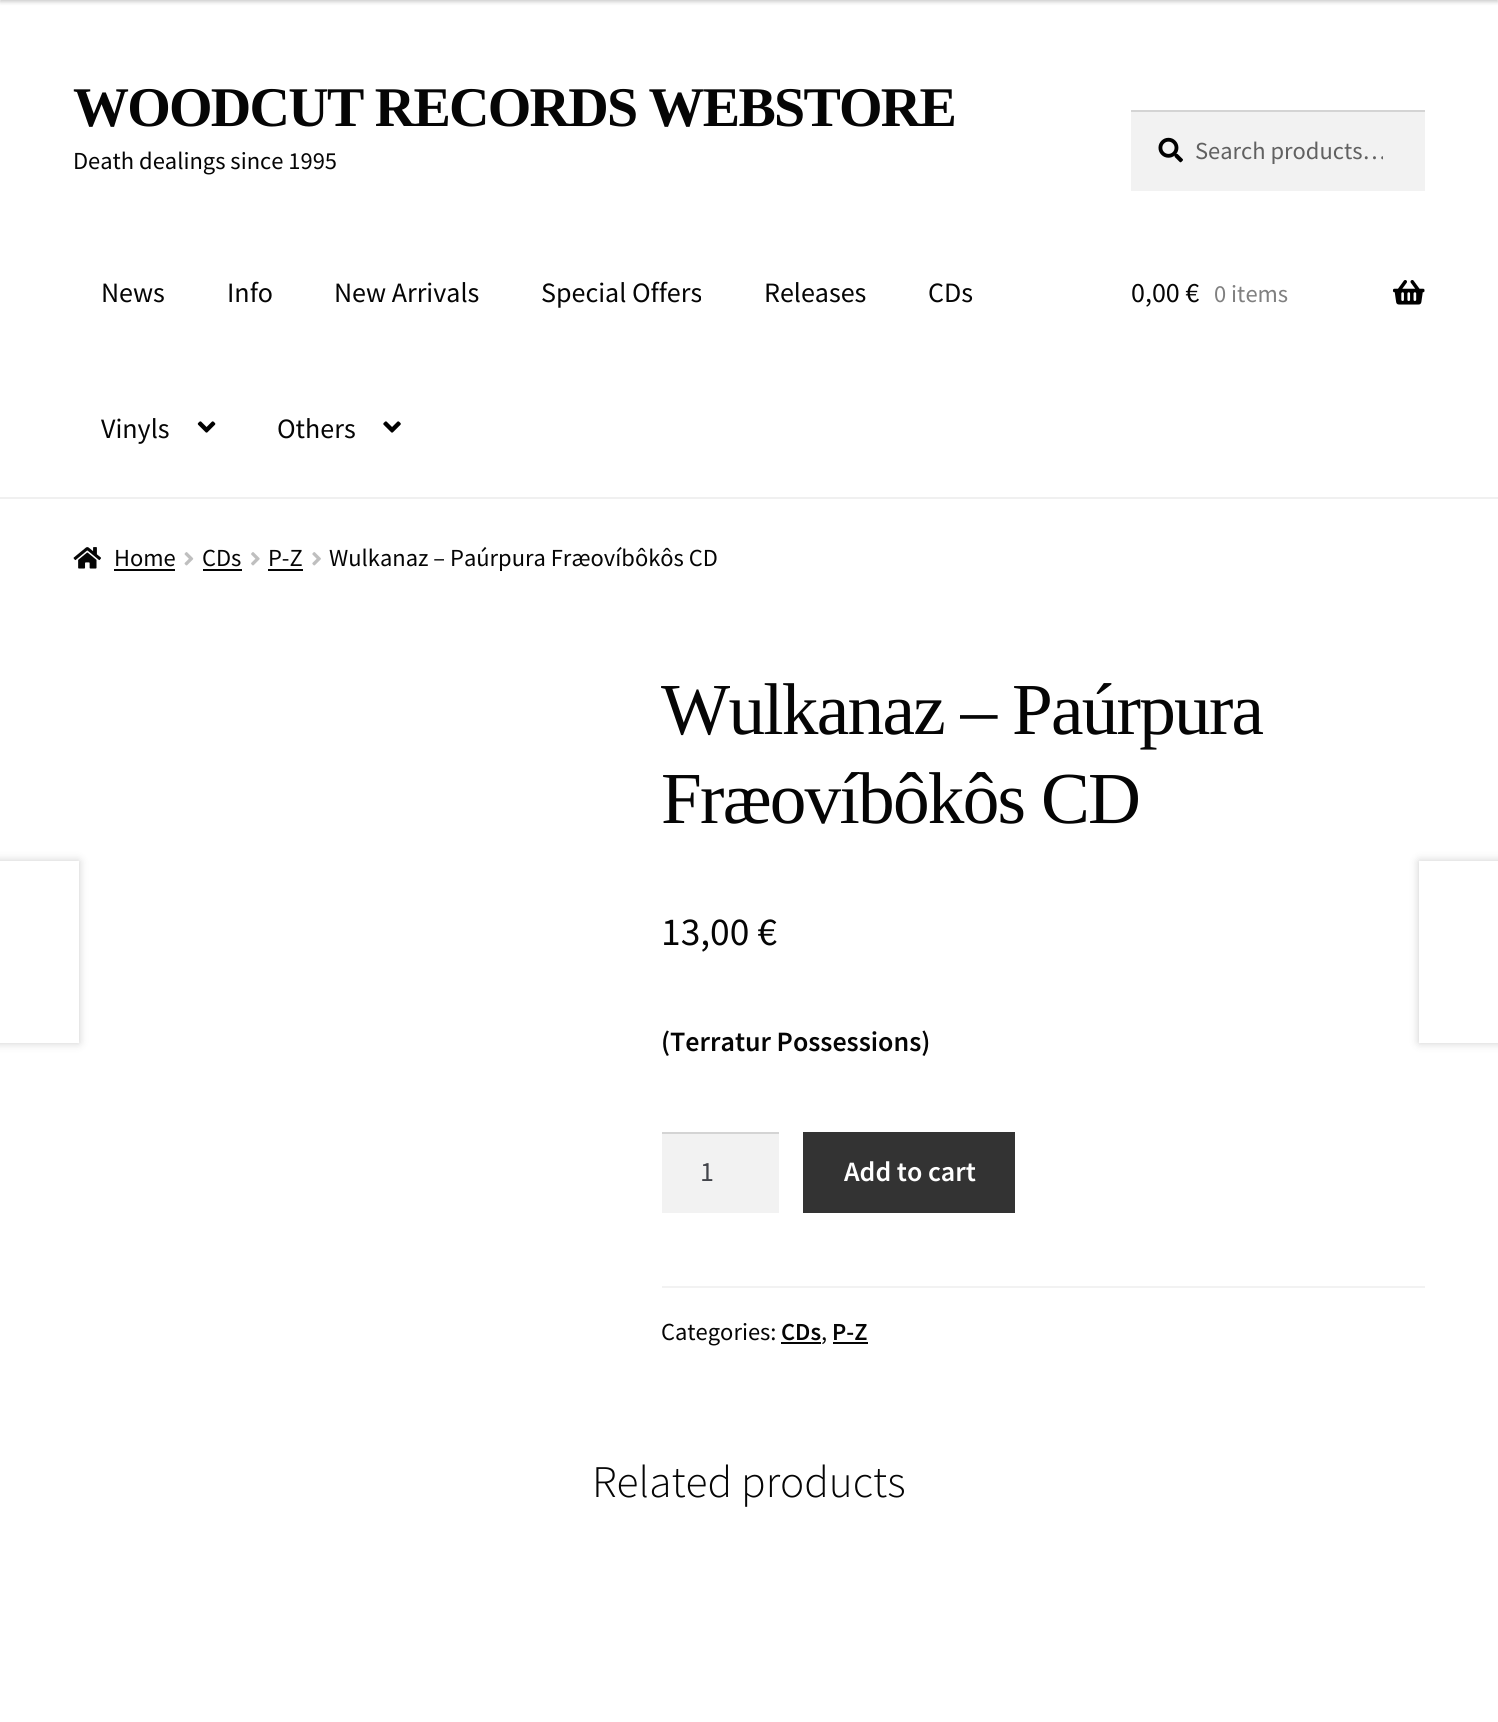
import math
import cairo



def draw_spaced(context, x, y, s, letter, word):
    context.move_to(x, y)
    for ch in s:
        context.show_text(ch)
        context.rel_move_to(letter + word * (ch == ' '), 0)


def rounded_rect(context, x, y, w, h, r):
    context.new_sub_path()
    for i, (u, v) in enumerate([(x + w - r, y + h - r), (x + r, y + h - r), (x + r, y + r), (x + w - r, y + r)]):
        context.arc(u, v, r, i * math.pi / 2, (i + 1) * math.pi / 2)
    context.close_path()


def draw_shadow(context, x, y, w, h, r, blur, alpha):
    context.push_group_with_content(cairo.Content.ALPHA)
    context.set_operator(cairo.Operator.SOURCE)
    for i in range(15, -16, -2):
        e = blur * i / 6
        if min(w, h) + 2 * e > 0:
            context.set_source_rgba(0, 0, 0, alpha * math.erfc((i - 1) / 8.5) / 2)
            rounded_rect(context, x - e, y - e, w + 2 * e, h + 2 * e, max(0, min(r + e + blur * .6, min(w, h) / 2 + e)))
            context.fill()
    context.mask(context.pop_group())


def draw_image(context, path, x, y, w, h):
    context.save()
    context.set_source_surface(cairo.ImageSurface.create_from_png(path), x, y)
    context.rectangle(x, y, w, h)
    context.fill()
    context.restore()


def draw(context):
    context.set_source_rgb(1, 1, 1)
    context.paint()
    context.set_source_rgb(0, 0, 0)
    draw_shadow(context, 0, -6, 1498, 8, 0, 2, 0.2)
    context.set_source_rgb(240 / 255, 240 / 255, 240 / 255)
    context.rectangle(0, 497, 1498, 2)
    context.fill()
    context.set_source_rgb(242 / 255, 242 / 255, 242 / 255)
    context.rectangle(1131, 112, 294, 79)
    context.fill()
    draw_image(context, "images/1.png", 1158, 137, 25, 26)
    context.set_source_rgb(212 / 255, 212 / 255, 212 / 255)
    context.rectangle(1131, 110, 294, 2)
    context.fill()
    draw_image(context, "images/2.png", 197, 421, 19, 12)
    draw_image(context, "images/3.png", 383, 421, 18, 12)
    draw_image(context, "images/4.png", 1393, 280, 32, 25)
    draw_image(context, "images/5.png", 73, 547, 28, 22)
    context.set_source_rgb(5 / 255, 5 / 255, 5 / 255)
    context.rectangle(114, 569, 61, 2)
    context.fill()
    draw_image(context, "images/6.png", 184, 552, 10, 14)
    context.rectangle(203, 569, 39, 2)
    context.fill()
    draw_image(context, "images/7.png", 251, 552, 9, 14)
    context.rectangle(268, 569, 35, 2)
    context.fill()
    draw_image(context, "images/8.png", 312, 552, 9, 14)
    context.set_source_rgb(242 / 255, 242 / 255, 242 / 255)
    context.rectangle(662, 1134, 117, 79)
    context.fill()
    context.set_source_rgb(212 / 255, 212 / 255, 212 / 255)
    context.rectangle(662, 1132, 117, 2)
    context.fill()
    context.set_source_rgb(51 / 255, 51 / 255, 51 / 255)
    context.rectangle(803, 1132, 212, 81)
    context.fill()
    context.set_source_rgb(242 / 255, 242 / 255, 242 / 255)
    context.rectangle(662, 1286, 763, 2)
    context.fill()
    context.set_source_rgb(5 / 255, 5 / 255, 5 / 255)
    context.rectangle(781, 1342, 40, 2)
    context.fill()
    context.rectangle(833, 1342, 35, 2)
    context.fill()
    context.set_source_rgb(0, 0, 0)
    draw_shadow(context, -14, 861, 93, 182, 0, 4.5, 0.2)
    context.set_source_rgb(1, 1, 1)
    context.rectangle(0, 861, 79, 182)
    context.fill()
    context.set_source_rgb(0, 0, 0)
    draw_shadow(context, 1419, 861, 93, 182, 0, 4.5, 0.2)
    context.set_source_rgb(1, 1, 1)
    context.rectangle(1419, 861, 79, 182)
    context.fill()
    context.select_font_face("Liberation Serif", cairo.FontSlant.NORMAL, cairo.FontWeight.BOLD)
    context.set_font_size(56)
    context.set_source_rgb(5 / 255, 5 / 255, 5 / 255)
    draw_spaced(context, 73, 126, "WOODCUT RECORDS WEBSTORE", -1.75, 0)
    context.select_font_face("Source Sans Pro")
    context.set_font_size(24.5)
    context.move_to(73, 169)
    context.show_text("Death dealings since 1995")
    context.save()
    context.rectangle(1195, 135, 188, 31)
    context.clip()
    context.set_source_rgb(97 / 255, 97 / 255, 97 / 255)
    context.move_to(1195, 159)
    context.show_text("Search products…")
    context.restore()
    context.set_font_size(28)
    context.move_to(101, 302)
    context.show_text("News")
    context.move_to(227, 302)
    context.show_text("Info")
    context.move_to(334, 302)
    context.show_text("New Arrivals")
    context.move_to(541, 302)
    context.show_text("Special Offers")
    context.move_to(764, 302)
    context.show_text("Releases")
    context.move_to(928, 302)
    context.show_text("CDs")
    context.move_to(101, 438)
    context.show_text("Vinyls")
    context.move_to(277, 438)
    context.show_text("Others")
    context.move_to(1131, 302)
    context.show_text("0,00 €")
    context.set_font_size(24.5)
    context.set_source_rgb(128 / 255, 128 / 255, 128 / 255)
    context.move_to(1214, 302)
    context.show_text("0 items")
    context.set_source_rgb(5 / 255, 5 / 255, 5 / 255)
    context.move_to(114, 566)
    context.show_text("Home")
    context.move_to(202, 566)
    context.show_text("CDs")
    context.move_to(268, 566)
    context.show_text("P-Z")
    context.move_to(329, 566)
    context.show_text("Wulkanaz – Paúrpura Fræovíbôkôs CD")
    context.select_font_face("Liberation Serif")
    context.set_font_size(73.25)
    draw_spaced(context, 661, 734, "Wulkanaz – Paúrpura", -1.75, 0)
    draw_spaced(context, 661, 823, "Fræovíbôkôs CD", -1.75, 0)
    context.select_font_face("Source Sans Pro")
    context.set_font_size(39.5)
    context.move_to(661, 945)
    context.show_text("13,00 €")
    context.select_font_face("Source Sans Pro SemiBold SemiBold")
    context.set_font_size(28)
    context.move_to(661, 1051)
    context.show_text("(Terratur Possessions)")
    context.select_font_face("Source Sans Pro")
    context.set_source_rgb(67 / 255, 69 / 255, 75 / 255)
    context.move_to(700, 1181)
    context.show_text("1")
    context.select_font_face("Source Sans Pro SemiBold SemiBold")
    context.set_source_rgb(1, 1, 1)
    context.move_to(844, 1181)
    context.show_text("Add to cart")
    context.select_font_face("Source Sans Pro")
    context.set_font_size(24.5)
    context.set_source_rgb(5 / 255, 5 / 255, 5 / 255)
    context.move_to(661, 1340)
    context.show_text("Categories:")
    context.select_font_face("Source Sans Pro SemiBold SemiBold")
    context.move_to(781, 1340)
    context.show_text("CDs")
    context.move_to(832, 1340)
    context.show_text("P-Z")
    context.select_font_face("Source Sans Pro")
    context.move_to(821, 1340)
    context.show_text(",")
    context.select_font_face("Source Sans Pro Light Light")
    context.set_font_size(45.25)
    context.move_to(592, 1497)
    context.show_text("Related products")


surface = cairo.ImageSurface(cairo.Format.RGB24, 1498, 1722)
context = cairo.Context(surface)
options = cairo.FontOptions()
options.set_hint_metrics(cairo.HintMetrics.OFF)
options.set_hint_style(cairo.HintStyle.NONE)
context.set_font_options(options)
context.set_miter_limit(4)
draw(context)
surface.write_to_png("out.png")
